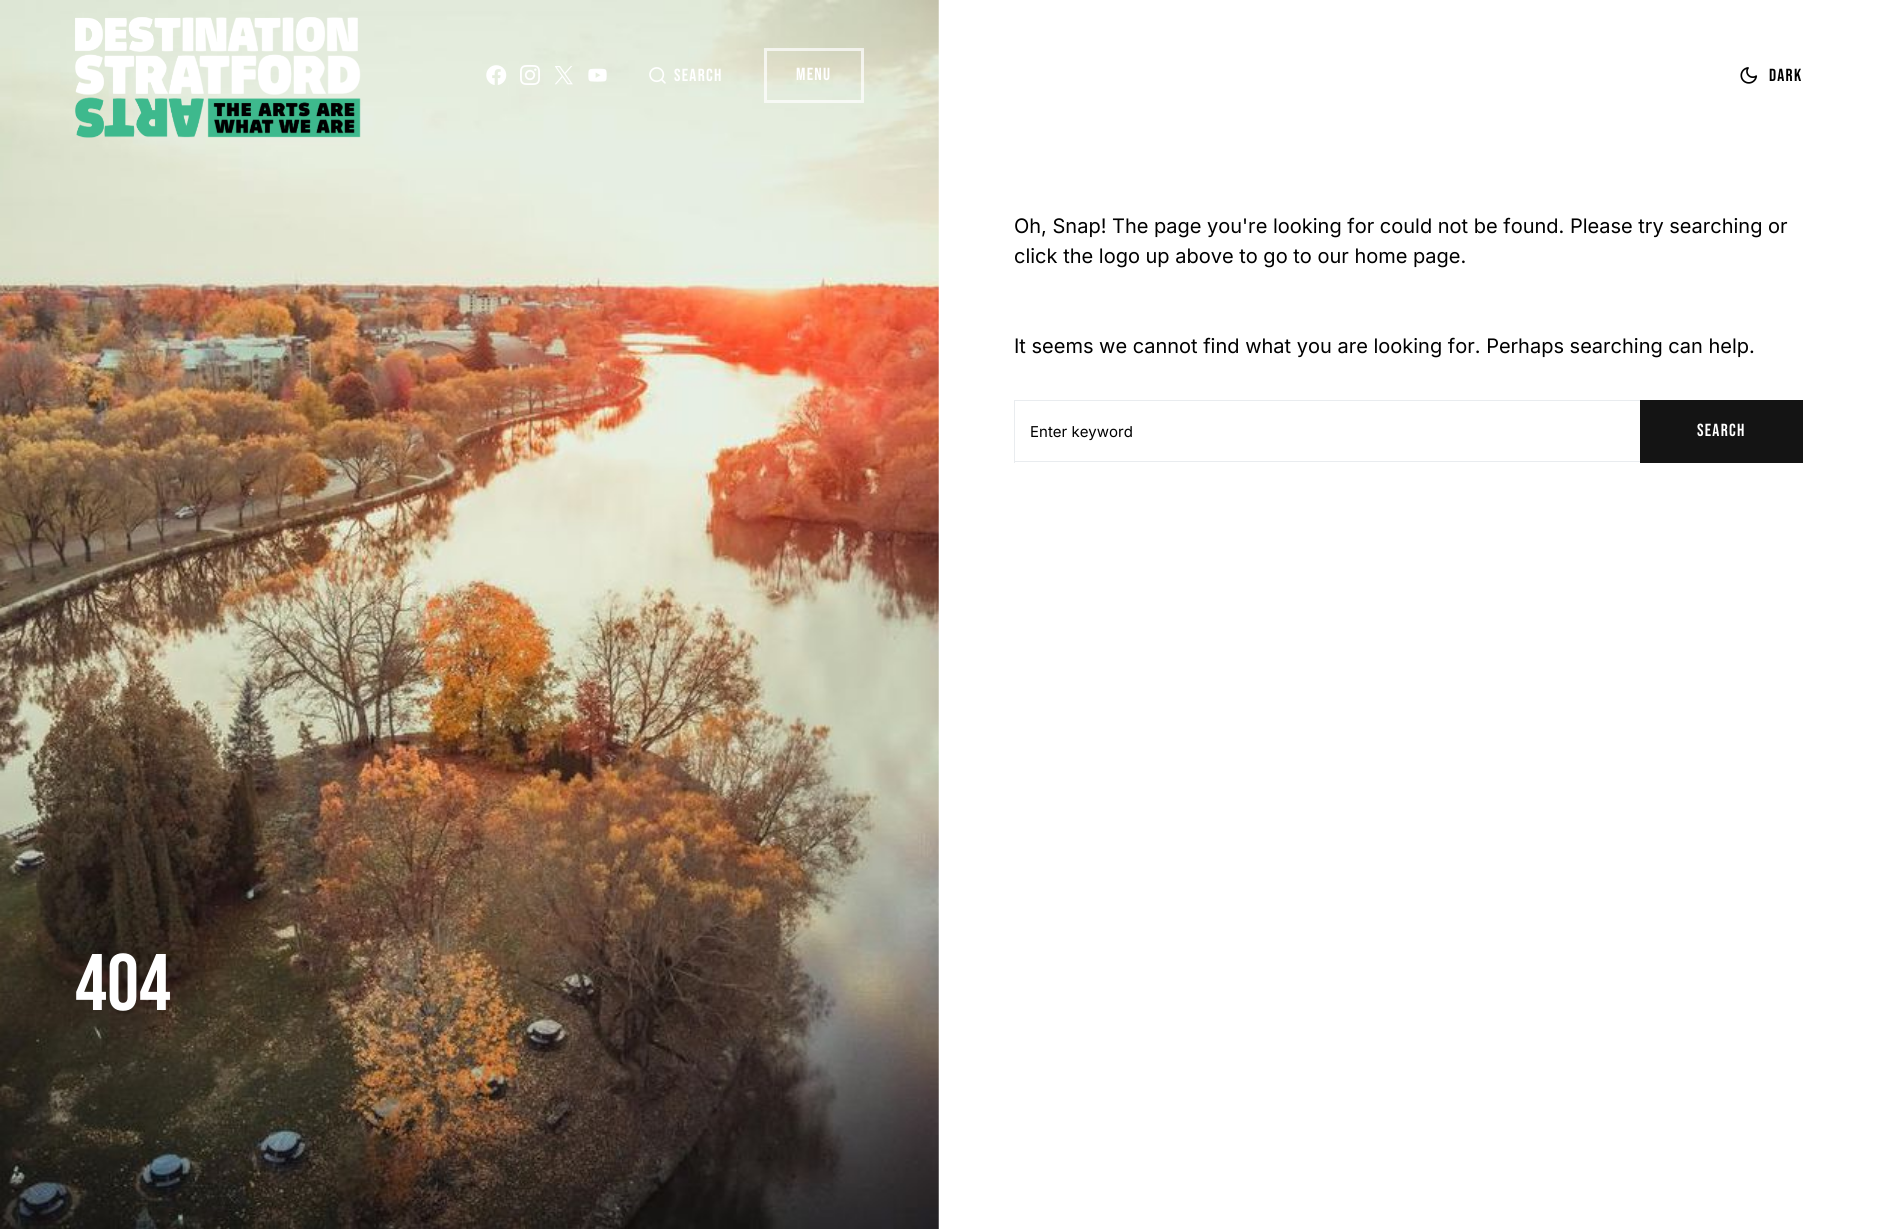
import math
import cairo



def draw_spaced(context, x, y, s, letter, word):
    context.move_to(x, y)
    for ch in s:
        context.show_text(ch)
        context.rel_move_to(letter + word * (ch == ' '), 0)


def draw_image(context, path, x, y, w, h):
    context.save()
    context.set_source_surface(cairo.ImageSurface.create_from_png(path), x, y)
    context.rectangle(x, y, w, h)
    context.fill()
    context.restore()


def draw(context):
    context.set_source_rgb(1, 1, 1)
    context.paint()
    draw_image(context, "images/1.png", 0, 0, 939, 1229)
    draw_image(context, "images/2.png", 75, 17, 286, 121)
    draw_image(context, "images/3.png", 486, 65, 21, 20)
    draw_image(context, "images/4.png", 520, 65, 20, 20)
    draw_image(context, "images/5.png", 555, 66, 18, 19)
    draw_image(context, "images/6.png", 588, 68, 19, 14)
    draw_image(context, "images/7.png", 649, 67, 17, 17)
    context.rectangle(765.5, 49.5, 97, 52)
    context.set_source_rgba(1, 1, 1, 0.7)
    context.set_line_width(3)
    context.stroke()
    draw_image(context, "images/8.png", 1740, 67, 18, 17)
    context.set_source_rgb(233 / 255, 236 / 255, 239 / 255)
    context.rectangle(1014, 400, 626, 1)
    context.fill()
    context.rectangle(1014, 461, 626, 1)
    context.fill()
    context.rectangle(1014, 400, 1, 63)
    context.fill()
    context.set_source_rgb(20 / 255, 20 / 255, 20 / 255)
    context.rectangle(1640, 400, 163, 63)
    context.fill()
    context.select_font_face("Bebas Neue")
    context.set_font_size(17.5)
    context.set_source_rgb(1, 1, 1)
    draw_spaced(context, 674, 81, "Search", 1.25, 0)
    draw_spaced(context, 796, 80, "Menu", 1.25, 0)
    context.set_font_size(80)
    context.move_to(75, 1010)
    context.show_text("404")
    context.set_font_size(17.5)
    context.set_source_rgb(0, 0, 0)
    draw_spaced(context, 1769, 81, "Dark", 1.25, 0)
    context.select_font_face("Inter")
    context.set_font_size(20)
    context.move_to(1014, 233)
    context.show_text("Oh, Snap! The page you're looking for could not be found. Please try searching or")
    context.move_to(1014, 263)
    context.show_text("click the logo up above to go to our home page.")
    context.move_to(1014, 353)
    context.show_text("It seems we cannot find what you are looking for. Perhaps searching can help.")
    context.set_font_size(15)
    context.move_to(1030, 437)
    context.show_text("Enter keyword")
    context.select_font_face("Bebas Neue")
    context.set_font_size(17.5)
    context.set_source_rgb(1, 1, 1)
    draw_spaced(context, 1697, 436, "Search", 1.25, 0)


surface = cairo.ImageSurface(cairo.Format.RGB24, 1877, 1229)
context = cairo.Context(surface)
options = cairo.FontOptions()
options.set_hint_metrics(cairo.HintMetrics.OFF)
options.set_hint_style(cairo.HintStyle.NONE)
context.set_font_options(options)
context.set_miter_limit(4)
draw(context)
surface.write_to_png("out.png")
